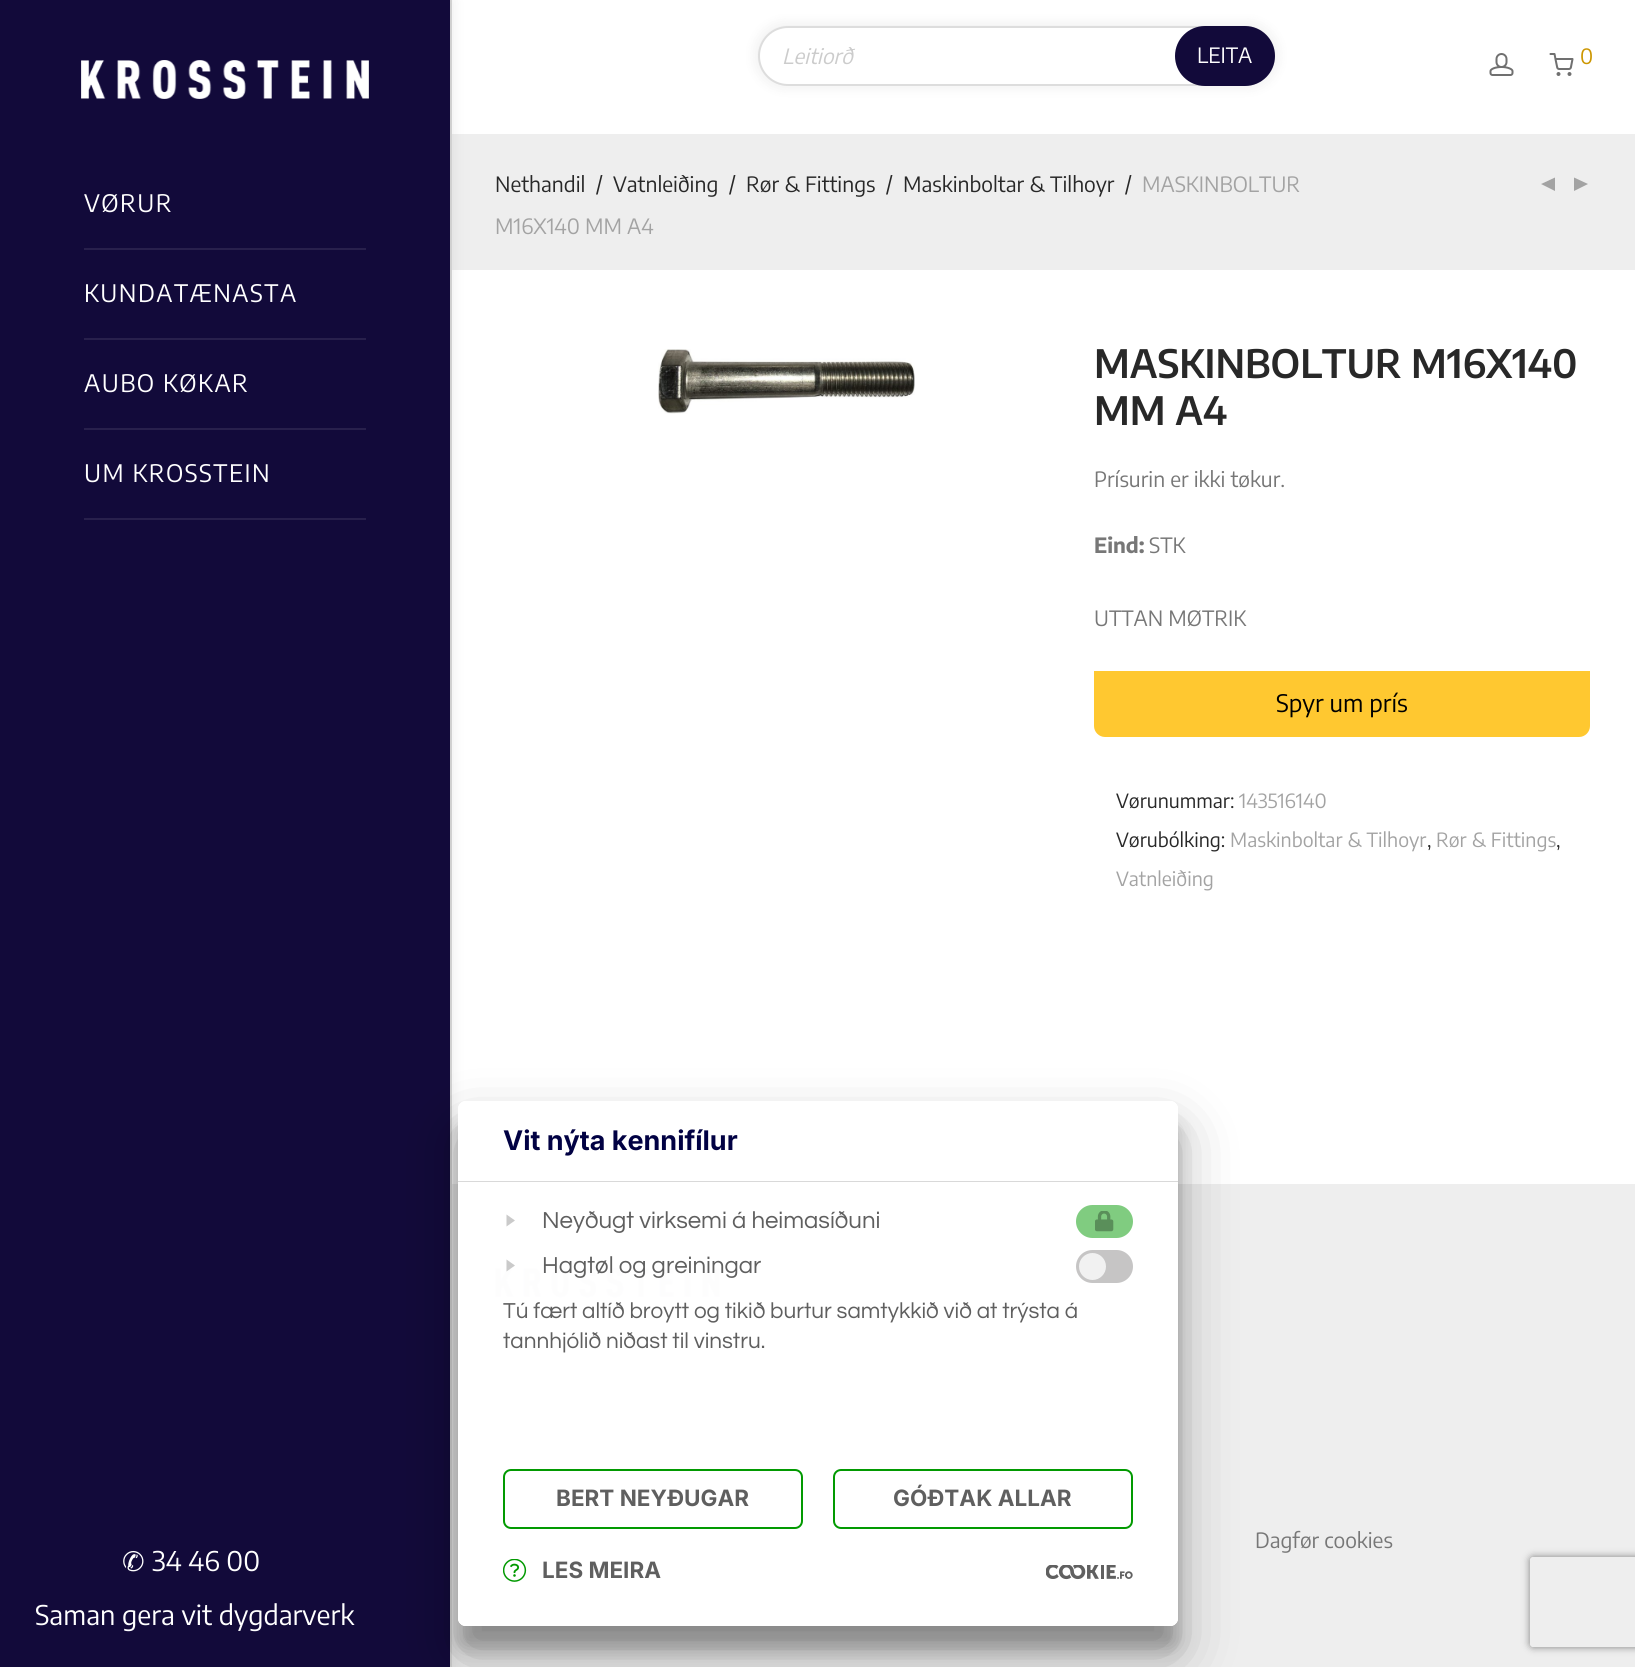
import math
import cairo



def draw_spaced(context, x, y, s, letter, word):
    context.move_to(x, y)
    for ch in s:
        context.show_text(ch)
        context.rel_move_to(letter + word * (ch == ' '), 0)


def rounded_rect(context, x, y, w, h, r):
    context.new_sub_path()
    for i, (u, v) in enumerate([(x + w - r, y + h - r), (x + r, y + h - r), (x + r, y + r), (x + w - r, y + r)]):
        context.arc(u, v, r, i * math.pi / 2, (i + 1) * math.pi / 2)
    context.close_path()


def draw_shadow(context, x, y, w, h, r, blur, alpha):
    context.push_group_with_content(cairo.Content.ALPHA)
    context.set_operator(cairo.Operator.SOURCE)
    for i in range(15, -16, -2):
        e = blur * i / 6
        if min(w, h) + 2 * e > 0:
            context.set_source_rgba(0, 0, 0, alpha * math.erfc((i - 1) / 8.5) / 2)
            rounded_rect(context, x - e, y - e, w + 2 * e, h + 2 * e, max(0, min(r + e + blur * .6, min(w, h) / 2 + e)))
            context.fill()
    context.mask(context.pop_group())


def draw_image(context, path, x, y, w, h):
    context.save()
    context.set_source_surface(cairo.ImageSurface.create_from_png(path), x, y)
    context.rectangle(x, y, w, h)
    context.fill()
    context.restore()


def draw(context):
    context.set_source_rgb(1, 1, 1)
    context.paint()
    context.set_source_rgb(238 / 255, 238 / 255, 238 / 255)
    context.rectangle(450, 134, 1185, 2)
    context.fill()
    context.set_source_rgb(218 / 255, 218 / 255, 218 / 255)
    context.rectangle(450, 0, 2, 1667)
    context.fill()
    context.set_source_rgb(238 / 255, 238 / 255, 238 / 255)
    context.rectangle(452, 136, 1183, 134)
    context.fill()
    context.rectangle(452, 1184, 1183, 483)
    context.fill()
    context.set_source_rgb(0, 0, 0)
    draw_shadow(context, 0, 0, 450, 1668, 0, 7.5, 0.1)
    context.set_source_rgb(18 / 255, 10 / 255, 58 / 255)
    context.rectangle(0, 0, 450, 1667)
    context.fill()
    draw_image(context, "images/1.png", 81, 60, 288, 39)
    context.set_source_rgb(40 / 255, 32 / 255, 76 / 255)
    context.rectangle(84, 248, 282, 2)
    context.fill()
    context.rectangle(84, 338, 282, 2)
    context.fill()
    context.rectangle(84, 428, 282, 2)
    context.fill()
    context.rectangle(84, 518, 282, 2)
    context.fill()
    context.set_source_rgb(0, 0, 0)
    draw_shadow(context, 756, 24, 521, 63, 31.5, 7, 0.07)
    context.set_source_rgb(1, 1, 1)
    rounded_rect(context, 759, 27, 515, 58, 29)
    context.fill_preserve()
    context.set_source_rgb(221 / 255, 221 / 255, 221 / 255)
    context.stroke()
    context.set_source_rgb(18 / 255, 10 / 255, 58 / 255)
    rounded_rect(context, 1175, 26, 100, 60, 30)
    context.fill()
    draw_image(context, "images/2.png", 1489, 53, 25, 23)
    draw_image(context, "images/3.png", 1549, 53, 25, 23)
    context.set_source_rgb(163 / 255, 163 / 255, 163 / 255)
    context.new_path()
    context.move_to(1555, 177.5)
    context.line_to(1555, 191)
    context.line_to(1541, 184)
    context.close_path()
    context.move_to(1574, 177.5)
    context.line_to(1574, 191)
    context.line_to(1588, 184)
    context.close_path()
    context.fill()
    draw_image(context, "images/4.png", 658, 349, 257, 65)
    context.set_source_rgb(1, 200 / 255, 48 / 255)
    context.new_path()
    context.move_to(1094, 671)
    context.line_to(1590, 671)
    context.line_to(1590, 726)
    context.curve_to(1590, 732, 1585, 737, 1579, 737)
    context.line_to(1105, 737)
    context.curve_to(1099, 737, 1094, 732, 1094, 726)
    context.close_path()
    context.fill()
    draw_image(context, "images/5.png", 495, 1267, 225, 31)
    context.save()
    context.set_fill_rule(cairo.FillRule.EVEN_ODD)
    context.new_path()
    context.move_to(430, 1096)
    context.line_to(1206, 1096)
    context.line_to(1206, 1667)
    context.line_to(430, 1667)
    context.close_path()
    context.move_to(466, 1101)
    context.line_to(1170, 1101)
    context.curve_to(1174.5, 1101, 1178, 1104.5, 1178, 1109)
    context.line_to(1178, 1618)
    context.curve_to(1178, 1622.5, 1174.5, 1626, 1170, 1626)
    context.line_to(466, 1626)
    context.curve_to(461.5, 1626, 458, 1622.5, 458, 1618)
    context.line_to(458, 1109)
    context.curve_to(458, 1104.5, 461.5, 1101, 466, 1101)
    context.close_path()
    context.clip()
    context.set_source_rgb(0, 0, 0)
    draw_shadow(context, 458, 1124, 720, 525, 8, 9, 0.22)
    context.restore()
    context.save()
    context.set_fill_rule(cairo.FillRule.EVEN_ODD)
    context.new_path()
    context.move_to(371, 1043)
    context.line_to(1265, 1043)
    context.line_to(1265, 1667)
    context.line_to(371, 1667)
    context.close_path()
    context.move_to(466, 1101)
    context.line_to(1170, 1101)
    context.curve_to(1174.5, 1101, 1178, 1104.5, 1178, 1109)
    context.line_to(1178, 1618)
    context.curve_to(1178, 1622.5, 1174.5, 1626, 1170, 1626)
    context.line_to(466, 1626)
    context.curve_to(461.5, 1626, 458, 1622.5, 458, 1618)
    context.line_to(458, 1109)
    context.curve_to(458, 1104.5, 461.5, 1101, 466, 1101)
    context.close_path()
    context.clip()
    context.set_source_rgb(0, 0, 0)
    draw_shadow(context, 458, 1130, 720, 525, 8, 28.5, 0.3)
    context.restore()
    context.set_source_rgba(1, 1, 1, 0.99)
    rounded_rect(context, 458, 1101, 720, 525, 8)
    context.fill()
    context.set_source_rgb(217 / 255, 217 / 255, 217 / 255)
    context.rectangle(458, 1181, 720, 2)
    context.fill()
    context.set_source_rgba(1, 1, 1, 0.99)
    context.rectangle(458, 1182, 720, 1)
    context.fill()
    context.set_source_rgb(202 / 255, 202 / 255, 202 / 255)
    context.new_path()
    context.move_to(506.5, 1214.5)
    context.line_to(515, 1220.5)
    context.line_to(506.5, 1226.5)
    context.close_path()
    context.fill()
    context.set_source_rgb(128 / 255, 204 / 255, 128 / 255)
    rounded_rect(context, 1076, 1205, 57, 33, 16.5)
    context.fill()
    draw_image(context, "images/6.png", 1095, 1211, 19, 21)
    context.set_source_rgb(202 / 255, 202 / 255, 202 / 255)
    context.new_path()
    context.move_to(506.5, 1259.5)
    context.line_to(515, 1265.5)
    context.line_to(506.5, 1271.5)
    context.close_path()
    context.fill()
    context.set_source_rgb(198 / 255, 197 / 255, 197 / 255)
    rounded_rect(context, 1076, 1250, 57, 33, 16.5)
    context.fill()
    context.set_source_rgb(241 / 255, 241 / 255, 241 / 255)
    context.arc(1092.5, 1266.5, 13.5, 0, 2 * math.pi)
    context.fill()
    context.set_source_rgba(1, 1, 1, 0.99)
    context.new_path()
    context.move_to(458, 1457)
    context.line_to(1178, 1457)
    context.line_to(1178, 1618)
    context.curve_to(1178, 1622.5, 1174.5, 1626, 1170, 1626)
    context.line_to(466, 1626)
    context.curve_to(461.5, 1626, 458, 1622.5, 458, 1618)
    context.close_path()
    context.fill()
    rounded_rect(context, 504, 1470, 298, 58, 7)
    context.set_source_rgb(2 / 255, 154 / 255, 1 / 255)
    context.stroke()
    rounded_rect(context, 834, 1470, 298, 58, 7)
    context.stroke()
    draw_image(context, "images/7.png", 503, 1559, 24, 23)
    draw_image(context, "images/8.png", 1046, 1565, 87, 15)
    context.save()
    context.set_fill_rule(cairo.FillRule.EVEN_ODD)
    context.new_path()
    context.move_to(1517, 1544)
    context.line_to(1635, 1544)
    context.line_to(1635, 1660)
    context.line_to(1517, 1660)
    context.close_path()
    context.move_to(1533, 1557)
    context.line_to(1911, 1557)
    context.curve_to(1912.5, 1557, 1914, 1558.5, 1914, 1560)
    context.line_to(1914, 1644)
    context.curve_to(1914, 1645.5, 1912.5, 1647, 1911, 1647)
    context.line_to(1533, 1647)
    context.curve_to(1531.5, 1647, 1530, 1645.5, 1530, 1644)
    context.line_to(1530, 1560)
    context.curve_to(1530, 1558.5, 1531.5, 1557, 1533, 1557)
    context.close_path()
    context.clip()
    context.set_source_rgb(128 / 255, 128 / 255, 128 / 255)
    draw_shadow(context, 1530, 1557, 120, 90, 3, 4, 1)
    context.restore()
    context.select_font_face("Encode Sans Condensed")
    context.set_font_size(24)
    context.set_source_rgb(1, 1, 1)
    draw_spaced(context, 84, 212, "VØRUR", 1.5, 0)
    draw_spaced(context, 84, 302, "KUNDATÆNASTA", 1.5, 0)
    draw_spaced(context, 84, 392, "AUBO KØKAR", 1.5, 0)
    draw_spaced(context, 84, 482, "UM KROSSTEIN", 1.5, 0)
    context.select_font_face("DejaVu Sans")
    context.set_font_size(27)
    context.move_to(122, 1571)
    context.show_text("✆")
    context.select_font_face("Encode Sans Condensed")
    context.move_to(152, 1571)
    context.show_text("34 46 00")
    context.move_to(35, 1625)
    context.show_text("Saman gera vit dygdarverk")
    context.select_font_face("Encode Sans Condensed", cairo.FontSlant.ITALIC)
    context.set_font_size(21)
    context.set_source_rgb(204 / 255, 204 / 255, 204 / 255)
    context.move_to(782, 64)
    context.show_text("Leitiorð")
    context.select_font_face("Encode Sans Condensed")
    context.set_source_rgb(1, 1, 1)
    context.move_to(1197, 63)
    context.show_text("LEITA")
    context.set_source_rgb(204 / 255, 150 / 255, 0)
    context.move_to(1580, 64)
    context.show_text("0")
    context.set_source_rgb(40 / 255, 40 / 255, 40 / 255)
    context.move_to(495, 192)
    context.show_text("Nethandil")
    context.move_to(596, 192)
    context.show_text("/")
    context.move_to(613, 192)
    context.show_text("Vatnleiðing")
    context.move_to(729, 192)
    context.show_text("/")
    context.move_to(746, 192)
    context.show_text("Rør & Fittings")
    context.move_to(886, 192)
    context.show_text("/")
    context.move_to(903, 192)
    context.show_text("Maskinboltar & Tilhoyr")
    context.move_to(1125, 192)
    context.show_text("/")
    context.set_source_rgb(163 / 255, 163 / 255, 163 / 255)
    context.move_to(1142, 192)
    context.show_text("MASKINBOLTUR")
    context.move_to(495, 234)
    context.show_text("M16X140 MM A4")
    context.select_font_face("Encode Sans Condensed SemiBold")
    context.set_font_size(39)
    context.set_source_rgb(40 / 255, 40 / 255, 40 / 255)
    context.move_to(1094, 378)
    context.show_text("MASKINBOLTUR M16X140")
    context.move_to(1094, 425)
    context.show_text("MM A4")
    context.select_font_face("Encode Sans Condensed")
    context.set_font_size(21)
    context.set_source_rgb(119 / 255, 119 / 255, 119 / 255)
    context.move_to(1094, 487)
    context.show_text("Prísurin er ikki tøkur.")
    context.select_font_face("Encode Sans Condensed", cairo.FontSlant.NORMAL, cairo.FontWeight.BOLD)
    context.move_to(1094, 553)
    context.show_text("Eind:")
    context.select_font_face("Encode Sans Condensed")
    context.move_to(1149, 553)
    context.show_text("STK")
    context.move_to(1094, 626)
    context.show_text("UTTAN MØTRIK")
    context.set_font_size(24)
    context.set_source_rgb(0, 0, 0)
    context.move_to(1276, 712)
    context.show_text("Spyr um prís")
    context.set_font_size(19.5)
    context.set_source_rgb(40 / 255, 40 / 255, 40 / 255)
    context.move_to(1116, 808)
    context.show_text("Vørunummar:")
    context.set_source_rgb(163 / 255, 163 / 255, 163 / 255)
    context.move_to(1239, 808)
    context.show_text("143516140")
    context.set_source_rgb(40 / 255, 40 / 255, 40 / 255)
    context.move_to(1116, 847)
    context.show_text("Vørubólking:")
    context.set_source_rgb(163 / 255, 163 / 255, 163 / 255)
    context.move_to(1230, 847)
    context.show_text("Maskinboltar & Tilhoyr")
    context.set_source_rgb(40 / 255, 40 / 255, 40 / 255)
    context.move_to(1427, 847)
    context.show_text(",")
    context.set_source_rgb(163 / 255, 163 / 255, 163 / 255)
    context.move_to(1436, 847)
    context.show_text("Rør & Fittings")
    context.set_source_rgb(40 / 255, 40 / 255, 40 / 255)
    context.move_to(1556, 847)
    context.show_text(",")
    context.set_source_rgb(163 / 255, 163 / 255, 163 / 255)
    context.move_to(1116, 886)
    context.show_text("Vatnleiðing")
    context.set_font_size(21)
    context.set_source_rgb(119 / 255, 119 / 255, 119 / 255)
    context.move_to(1255, 1548)
    context.show_text("Dagfør cookies")
    context.select_font_face("Inter", cairo.FontSlant.NORMAL, cairo.FontWeight.BOLD)
    context.set_font_size(27)
    context.set_source_rgb(1 / 255, 1 / 255, 67 / 255)
    context.move_to(503, 1150)
    context.show_text("Vit nýta kennifílur")
    context.select_font_face("Questrial")
    context.set_font_size(24)
    context.set_source_rgb(95 / 255, 95 / 255, 95 / 255)
    context.move_to(542, 1228)
    context.show_text("Neyðugt virksemi á heimasíðuni")
    context.move_to(542, 1273)
    context.show_text("Hagtøl og greiningar")
    context.set_font_size(22.5)
    context.move_to(503, 1318)
    context.show_text("Tú fært altíð broytt og tikið burtur samtykkið við at trýsta á")
    context.move_to(503, 1348)
    context.show_text("tannhjólið niðast til vinstru.")
    context.select_font_face("Inter", cairo.FontSlant.NORMAL, cairo.FontWeight.BOLD)
    context.move_to(556, 1506)
    context.show_text("BERT NEYÐUGAR")
    context.move_to(893, 1506)
    context.show_text("GÓÐTAK ALLAR")
    context.move_to(542, 1578)
    context.show_text("LES MEIRA")


surface = cairo.ImageSurface(cairo.Format.RGB24, 1635, 1667)
context = cairo.Context(surface)
options = cairo.FontOptions()
options.set_hint_metrics(cairo.HintMetrics.OFF)
options.set_hint_style(cairo.HintStyle.NONE)
context.set_font_options(options)
context.set_miter_limit(4)
draw(context)
surface.write_to_png("out.png")
